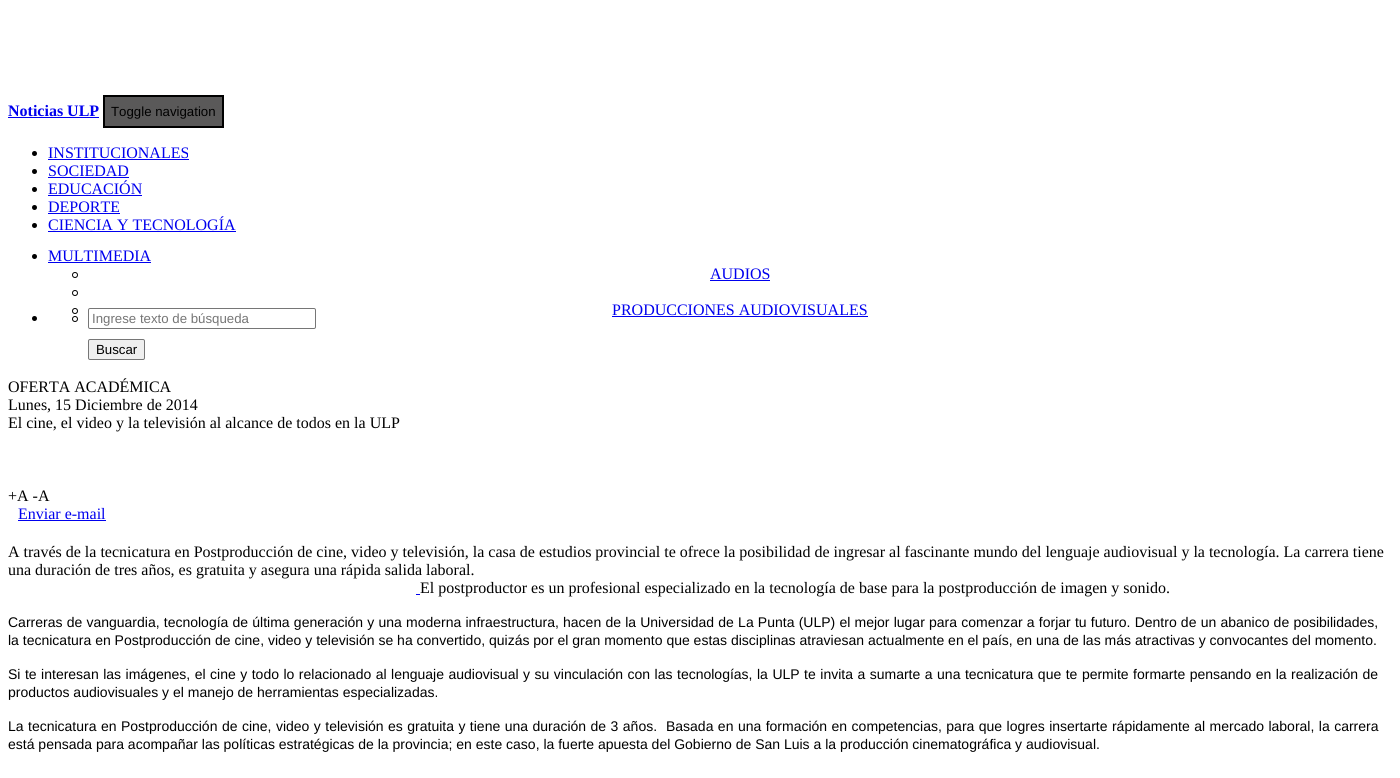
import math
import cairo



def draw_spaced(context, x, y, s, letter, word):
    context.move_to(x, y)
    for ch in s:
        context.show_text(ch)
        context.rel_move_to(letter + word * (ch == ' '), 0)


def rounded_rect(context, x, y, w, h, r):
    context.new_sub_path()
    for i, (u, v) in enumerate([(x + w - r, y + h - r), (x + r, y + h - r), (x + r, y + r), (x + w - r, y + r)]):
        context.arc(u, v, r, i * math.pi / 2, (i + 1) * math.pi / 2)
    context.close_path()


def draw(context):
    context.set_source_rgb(1, 1, 1)
    context.paint()
    context.set_source_rgb(0, 0, 238 / 255)
    context.rectangle(8, 117, 91, 1)
    context.fill()
    context.set_source_rgb(90 / 255, 89 / 255, 89 / 255)
    context.rectangle(104, 96, 119, 31)
    context.fill_preserve()
    context.set_source_rgb(0, 0, 0)
    context.stroke()
    context.arc(34.5, 153.5, 2.5, 0, 2 * math.pi)
    context.fill()
    context.set_source_rgb(0, 0, 238 / 255)
    context.rectangle(48, 159, 141, 1)
    context.fill()
    context.set_source_rgb(0, 0, 0)
    context.arc(34.5, 171.5, 2.5, 0, 2 * math.pi)
    context.fill()
    context.set_source_rgb(0, 0, 238 / 255)
    context.rectangle(48, 177, 81, 1)
    context.fill()
    context.set_source_rgb(0, 0, 0)
    context.arc(34.5, 189.5, 2.5, 0, 2 * math.pi)
    context.fill()
    context.set_source_rgb(0, 0, 238 / 255)
    context.rectangle(48, 195, 94, 1)
    context.fill()
    context.set_source_rgb(0, 0, 0)
    context.arc(34.5, 207.5, 2.5, 0, 2 * math.pi)
    context.fill()
    context.set_source_rgb(0, 0, 238 / 255)
    context.rectangle(48, 213, 72, 1)
    context.fill()
    context.set_source_rgb(0, 0, 0)
    context.arc(34.5, 225.5, 2.5, 0, 2 * math.pi)
    context.fill()
    context.set_source_rgb(0, 0, 238 / 255)
    context.rectangle(48, 231, 188, 1)
    context.fill()
    context.set_source_rgb(0, 0, 0)
    context.arc(34.5, 256.5, 2.5, 0, 2 * math.pi)
    context.fill()
    context.set_source_rgb(0, 0, 238 / 255)
    context.rectangle(48, 262, 103, 1)
    context.fill()
    context.arc(75, 275, 2.5, 0, 2 * math.pi)
    context.set_source_rgb(0, 0, 0)
    context.set_line_width(1)
    context.stroke()
    context.set_source_rgb(0, 0, 238 / 255)
    context.rectangle(710, 280, 60, 1)
    context.fill()
    context.arc(75, 293, 2.5, 0, 2 * math.pi)
    context.set_source_rgb(0, 0, 0)
    context.stroke()
    context.arc(75, 311, 2.5, 0, 2 * math.pi)
    context.stroke()
    context.set_source_rgb(0, 0, 238 / 255)
    context.rectangle(612, 316, 256, 1)
    context.fill()
    context.set_source_rgb(0, 0, 0)
    context.arc(34.5, 318.5, 2.5, 0, 2 * math.pi)
    context.fill()
    context.arc(75, 319, 2.5, 0, 2 * math.pi)
    context.stroke()
    rounded_rect(context, 88.5, 308.5, 227, 20, 1.5)
    context.set_source_rgb(118 / 255, 118 / 255, 118 / 255)
    context.stroke()
    context.set_source_rgb(239 / 255, 239 / 255, 239 / 255)
    rounded_rect(context, 88.5, 339.5, 56, 20, 1.5)
    context.fill_preserve()
    context.set_source_rgb(118 / 255, 118 / 255, 118 / 255)
    context.stroke()
    context.set_source_rgb(0, 0, 238 / 255)
    context.rectangle(18, 520, 88, 1)
    context.fill()
    context.rectangle(416, 594, 4, 1)
    context.fill()
    context.select_font_face("Liberation Serif", cairo.FontSlant.NORMAL, cairo.FontWeight.BOLD)
    context.set_font_size(16)
    context.move_to(8, 116)
    context.show_text("Noticias ULP")
    context.select_font_face("Liberation Sans")
    context.set_font_size(13.25)
    context.set_source_rgb(0, 0, 0)
    context.move_to(111, 116)
    context.show_text("Toggle navigation")
    context.select_font_face("Liberation Serif")
    context.set_font_size(16)
    context.set_source_rgb(0, 0, 238 / 255)
    context.move_to(48, 158)
    context.show_text("INSTITUCIONALES")
    context.move_to(48, 176)
    context.show_text("SOCIEDAD")
    context.move_to(48, 194)
    context.show_text("EDUCACIÓN")
    context.move_to(48, 212)
    context.show_text("DEPORTE")
    context.move_to(48, 230)
    context.show_text("CIENCIA Y TECNOLOGÍA")
    context.move_to(48, 261)
    context.show_text("MULTIMEDIA")
    context.move_to(710, 279)
    context.show_text("AUDIOS")
    context.move_to(612, 315)
    context.show_text("PRODUCCIONES AUDIOVISUALES")
    context.select_font_face("Liberation Sans")
    context.set_font_size(13.25)
    context.set_source_rgb(117 / 255, 117 / 255, 117 / 255)
    context.move_to(92, 323)
    context.show_text("Ingrese texto de búsqueda")
    context.set_source_rgb(0, 0, 0)
    context.move_to(96, 354)
    context.show_text("Buscar")
    context.select_font_face("Liberation Serif")
    context.set_font_size(16)
    context.move_to(8, 392)
    context.show_text("OFERTA ACADÉMICA")
    context.move_to(8, 410)
    context.show_text("Lunes, 15 Diciembre de 2014")
    context.move_to(8, 428)
    context.show_text("El cine, el video y la televisión al alcance de todos en la ULP")
    context.move_to(8, 501)
    context.show_text("+A -A")
    context.set_source_rgb(0, 0, 238 / 255)
    context.move_to(18, 519)
    context.show_text("Enviar e-mail")
    context.set_source_rgb(0, 0, 0)
    context.move_to(8, 557)
    context.show_text("A través de la tecnicatura en Postproducción de cine, video y televisión, la casa de estudios provincial te ofrece la posibilidad de ingresar al fascinante mundo del lenguaje audiovisual y la tecnología. La carrera tiene")
    context.move_to(8, 575)
    context.show_text("una duración de tres años, es gratuita y asegura una rápida salida laboral.")
    context.move_to(420, 593)
    context.show_text("El postproductor es un profesional especializado en la tecnología de base para la postproducción de imagen y sonido.")
    context.select_font_face("Liberation Sans")
    context.set_font_size(14)
    draw_spaced(context, 8, 627, "Carreras de vanguardia, tecnología de última generación y una moderna infraestructura, hacen de la Universidad de La Punta (ULP) el mejor lugar para comenzar a forjar tu futuro. Dentro de un abanico de posibilidades,", 0, 0.3)
    context.move_to(8, 645)
    context.show_text("la tecnicatura en Postproducción de cine, video y televisión se ha convertido, quizás por el gran momento que estas disciplinas atraviesan actualmente en el país, en una de las más atractivas y convocantes del momento.")
    draw_spaced(context, 8, 679, "Si te interesan las imágenes, el cine y todo lo relacionado al lenguaje audiovisual y su vinculación con las tecnologías, la ULP te invita a sumarte a una tecnicatura que te permite formarte pensando en la realización de", 0, 0.6)
    context.move_to(8, 697)
    context.show_text("productos audiovisuales y el manejo de herramientas especializadas.")
    draw_spaced(context, 8, 731, "La tecnicatura en Postproducción de cine, video y televisión es gratuita y tiene una duración de 3 años.  Basada en una formación en competencias, para que logres insertarte rápidamente al mercado laboral, la carrera", 0, 0.55)
    context.move_to(8, 749)
    context.show_text("está pensada para acompañar las políticas estratégicas de la provincia; en este caso, la fuerte apuesta del Gobierno de San Luis a la producción cinematográfica y audiovisual.")


surface = cairo.ImageSurface(cairo.Format.RGB24, 1400, 778)
context = cairo.Context(surface)
options = cairo.FontOptions()
options.set_hint_metrics(cairo.HintMetrics.OFF)
options.set_hint_style(cairo.HintStyle.NONE)
context.set_font_options(options)
context.set_miter_limit(4)
draw(context)
surface.write_to_png("out.png")
